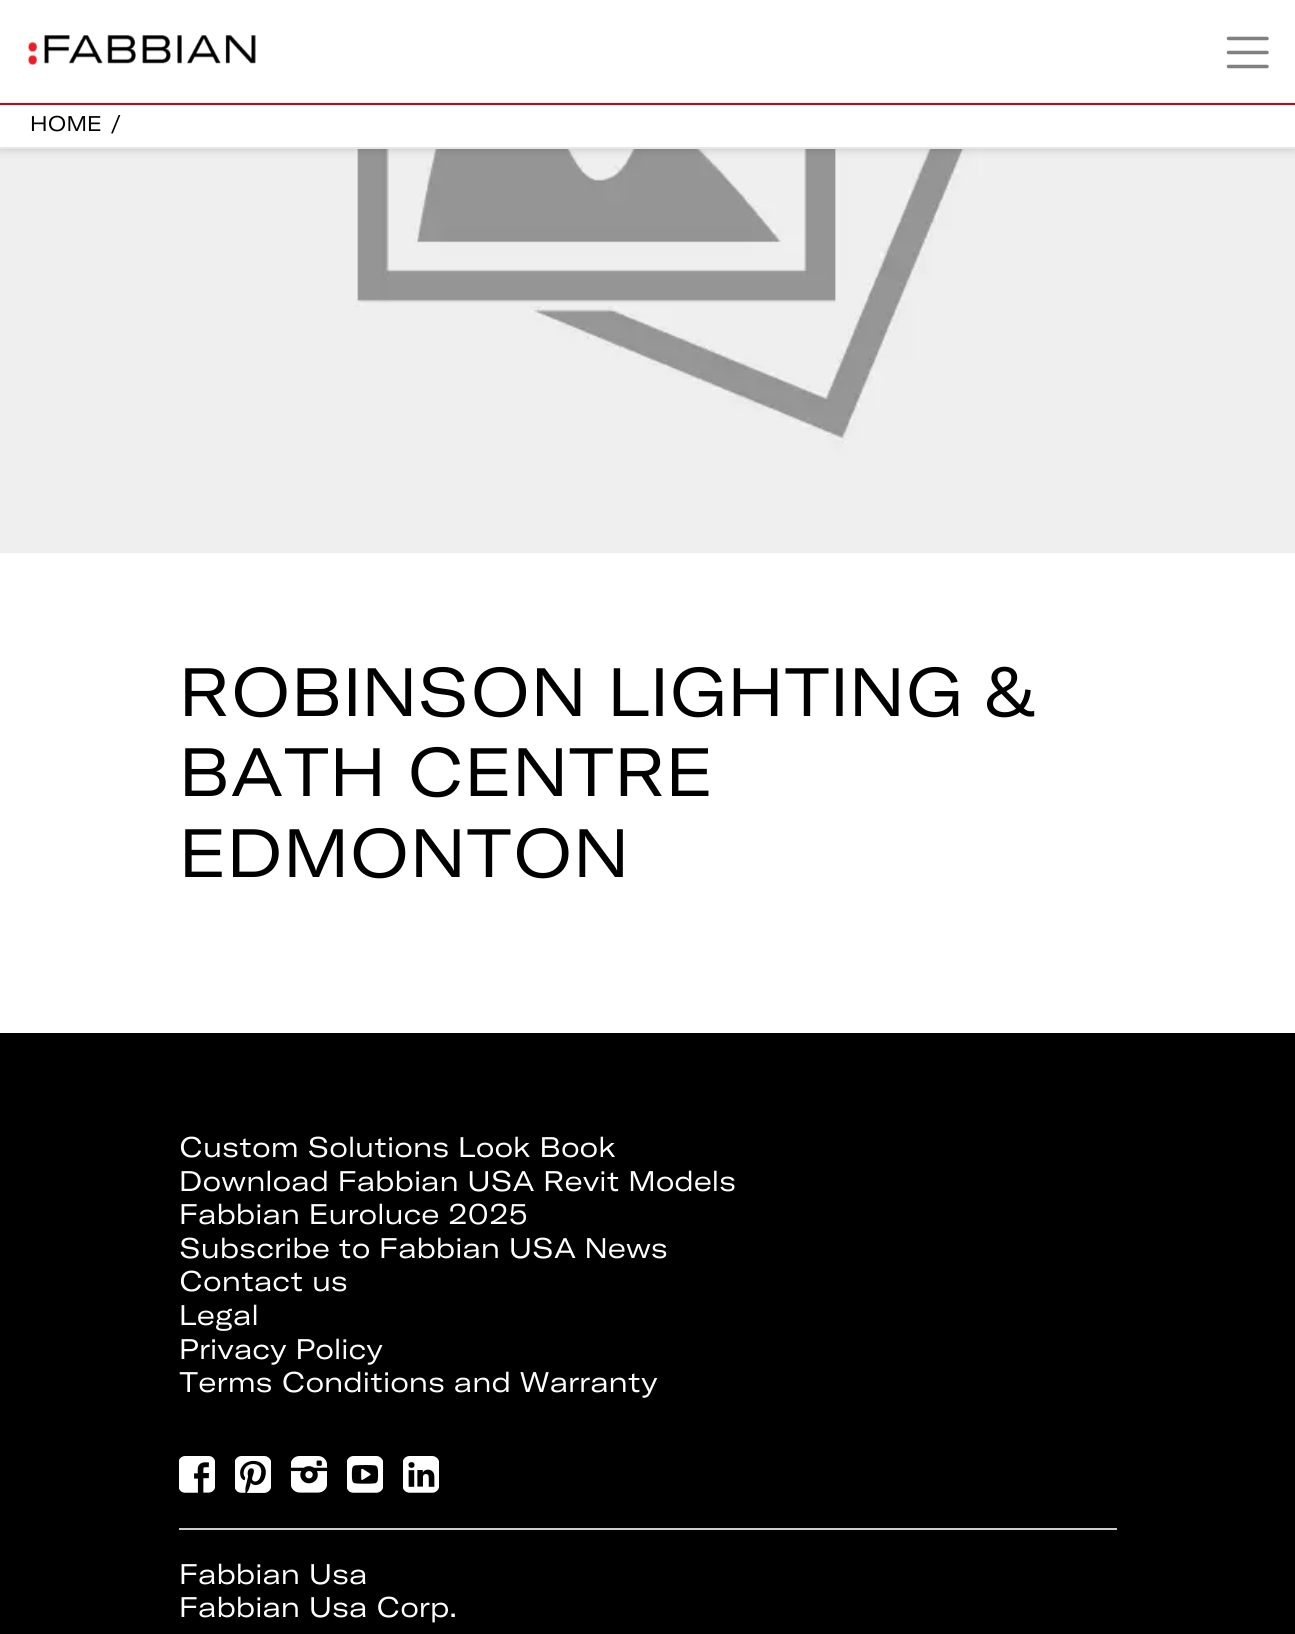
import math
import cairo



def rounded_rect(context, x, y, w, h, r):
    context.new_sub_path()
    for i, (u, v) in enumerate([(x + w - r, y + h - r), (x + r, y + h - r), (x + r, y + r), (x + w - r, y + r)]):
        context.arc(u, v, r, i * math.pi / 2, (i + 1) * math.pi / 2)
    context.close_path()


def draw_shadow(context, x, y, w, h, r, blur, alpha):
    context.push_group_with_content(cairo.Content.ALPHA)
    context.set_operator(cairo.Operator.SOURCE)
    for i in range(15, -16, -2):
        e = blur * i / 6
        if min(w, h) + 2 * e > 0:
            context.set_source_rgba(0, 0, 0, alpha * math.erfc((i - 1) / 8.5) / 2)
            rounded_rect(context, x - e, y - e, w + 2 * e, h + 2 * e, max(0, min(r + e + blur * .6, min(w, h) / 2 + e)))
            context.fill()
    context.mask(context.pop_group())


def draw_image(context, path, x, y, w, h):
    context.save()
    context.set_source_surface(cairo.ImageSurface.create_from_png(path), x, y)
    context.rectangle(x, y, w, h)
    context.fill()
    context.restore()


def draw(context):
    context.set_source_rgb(1, 1, 1)
    context.paint()
    draw_image(context, "images/2.png", 0, 149, 1295, 405)
    context.set_source_rgb(0, 0, 0)
    draw_shadow(context, 0, 0, 1295, 149, 0, 4.5, 0.2)
    context.set_source_rgb(1, 1, 1)
    context.rectangle(0, 0, 1295, 147)
    context.fill()
    context.set_source_rgb(230 / 255, 230 / 255, 230 / 255)
    context.rectangle(0, 147, 1295, 2)
    context.fill()
    context.set_source_rgb(203 / 255, 0, 23 / 255)
    context.rectangle(0, 103, 1295, 2)
    context.fill()
    draw_image(context, "images/1.png", 28, 35, 228, 30)
    context.new_path()
    context.move_to(1228.5, 38.5)
    context.line_to(1267, 38.5)
    context.move_to(1228.5, 52.5)
    context.line_to(1267, 52.5)
    context.move_to(1228.5, 66.5)
    context.line_to(1267, 66.5)
    context.set_source_rgb(128 / 255, 128 / 255, 128 / 255)
    context.set_line_width(3.5)
    context.set_line_cap(cairo.LineCap.ROUND)
    context.stroke()
    context.set_source_rgb(0, 0, 0)
    context.rectangle(0, 1033, 1295, 601)
    context.fill()
    draw_image(context, "images/3.png", 179, 1456, 36, 37)
    draw_image(context, "images/4.png", 235, 1456, 36, 37)
    draw_image(context, "images/5.png", 291, 1456, 36, 37)
    draw_image(context, "images/6.png", 347, 1456, 36, 37)
    draw_image(context, "images/7.png", 403, 1456, 36, 37)
    context.set_source_rgb(204 / 255, 204 / 255, 204 / 255)
    context.rectangle(179, 1528, 938, 2)
    context.fill()
    context.select_font_face("GT America")
    context.set_font_size(21)
    context.set_source_rgb(0, 0, 0)
    context.move_to(30, 131)
    context.show_text("HOME")
    context.move_to(110, 131)
    context.show_text("/")
    context.set_font_size(67.25)
    context.move_to(179, 716)
    context.show_text("ROBINSON LIGHTING &")
    context.move_to(179, 796)
    context.show_text("BATH CENTRE")
    context.move_to(179, 877)
    context.show_text("EDMONTON")
    context.set_font_size(28)
    context.set_source_rgb(1, 1, 1)
    context.move_to(179, 1157)
    context.show_text("Custom Solutions Look Book")
    context.move_to(179, 1191)
    context.show_text("Download Fabbian USA Revit Models")
    context.move_to(179, 1224)
    context.show_text("Fabbian Euroluce 2025")
    context.move_to(179, 1258)
    context.show_text("Subscribe to Fabbian USA News")
    context.move_to(179, 1291)
    context.show_text("Contact us")
    context.move_to(179, 1325)
    context.show_text("Legal")
    context.move_to(179, 1359)
    context.show_text("Privacy Policy")
    context.move_to(179, 1392)
    context.show_text("Terms Conditions and Warranty")
    context.move_to(179, 1584)
    context.show_text("Fabbian Usa")
    context.move_to(179, 1617)
    context.show_text("Fabbian Usa Corp.")


surface = cairo.ImageSurface(cairo.Format.RGB24, 1295, 1634)
context = cairo.Context(surface)
options = cairo.FontOptions()
options.set_hint_metrics(cairo.HintMetrics.OFF)
options.set_hint_style(cairo.HintStyle.NONE)
context.set_font_options(options)
context.set_miter_limit(4)
draw(context)
surface.write_to_png("out.png")
